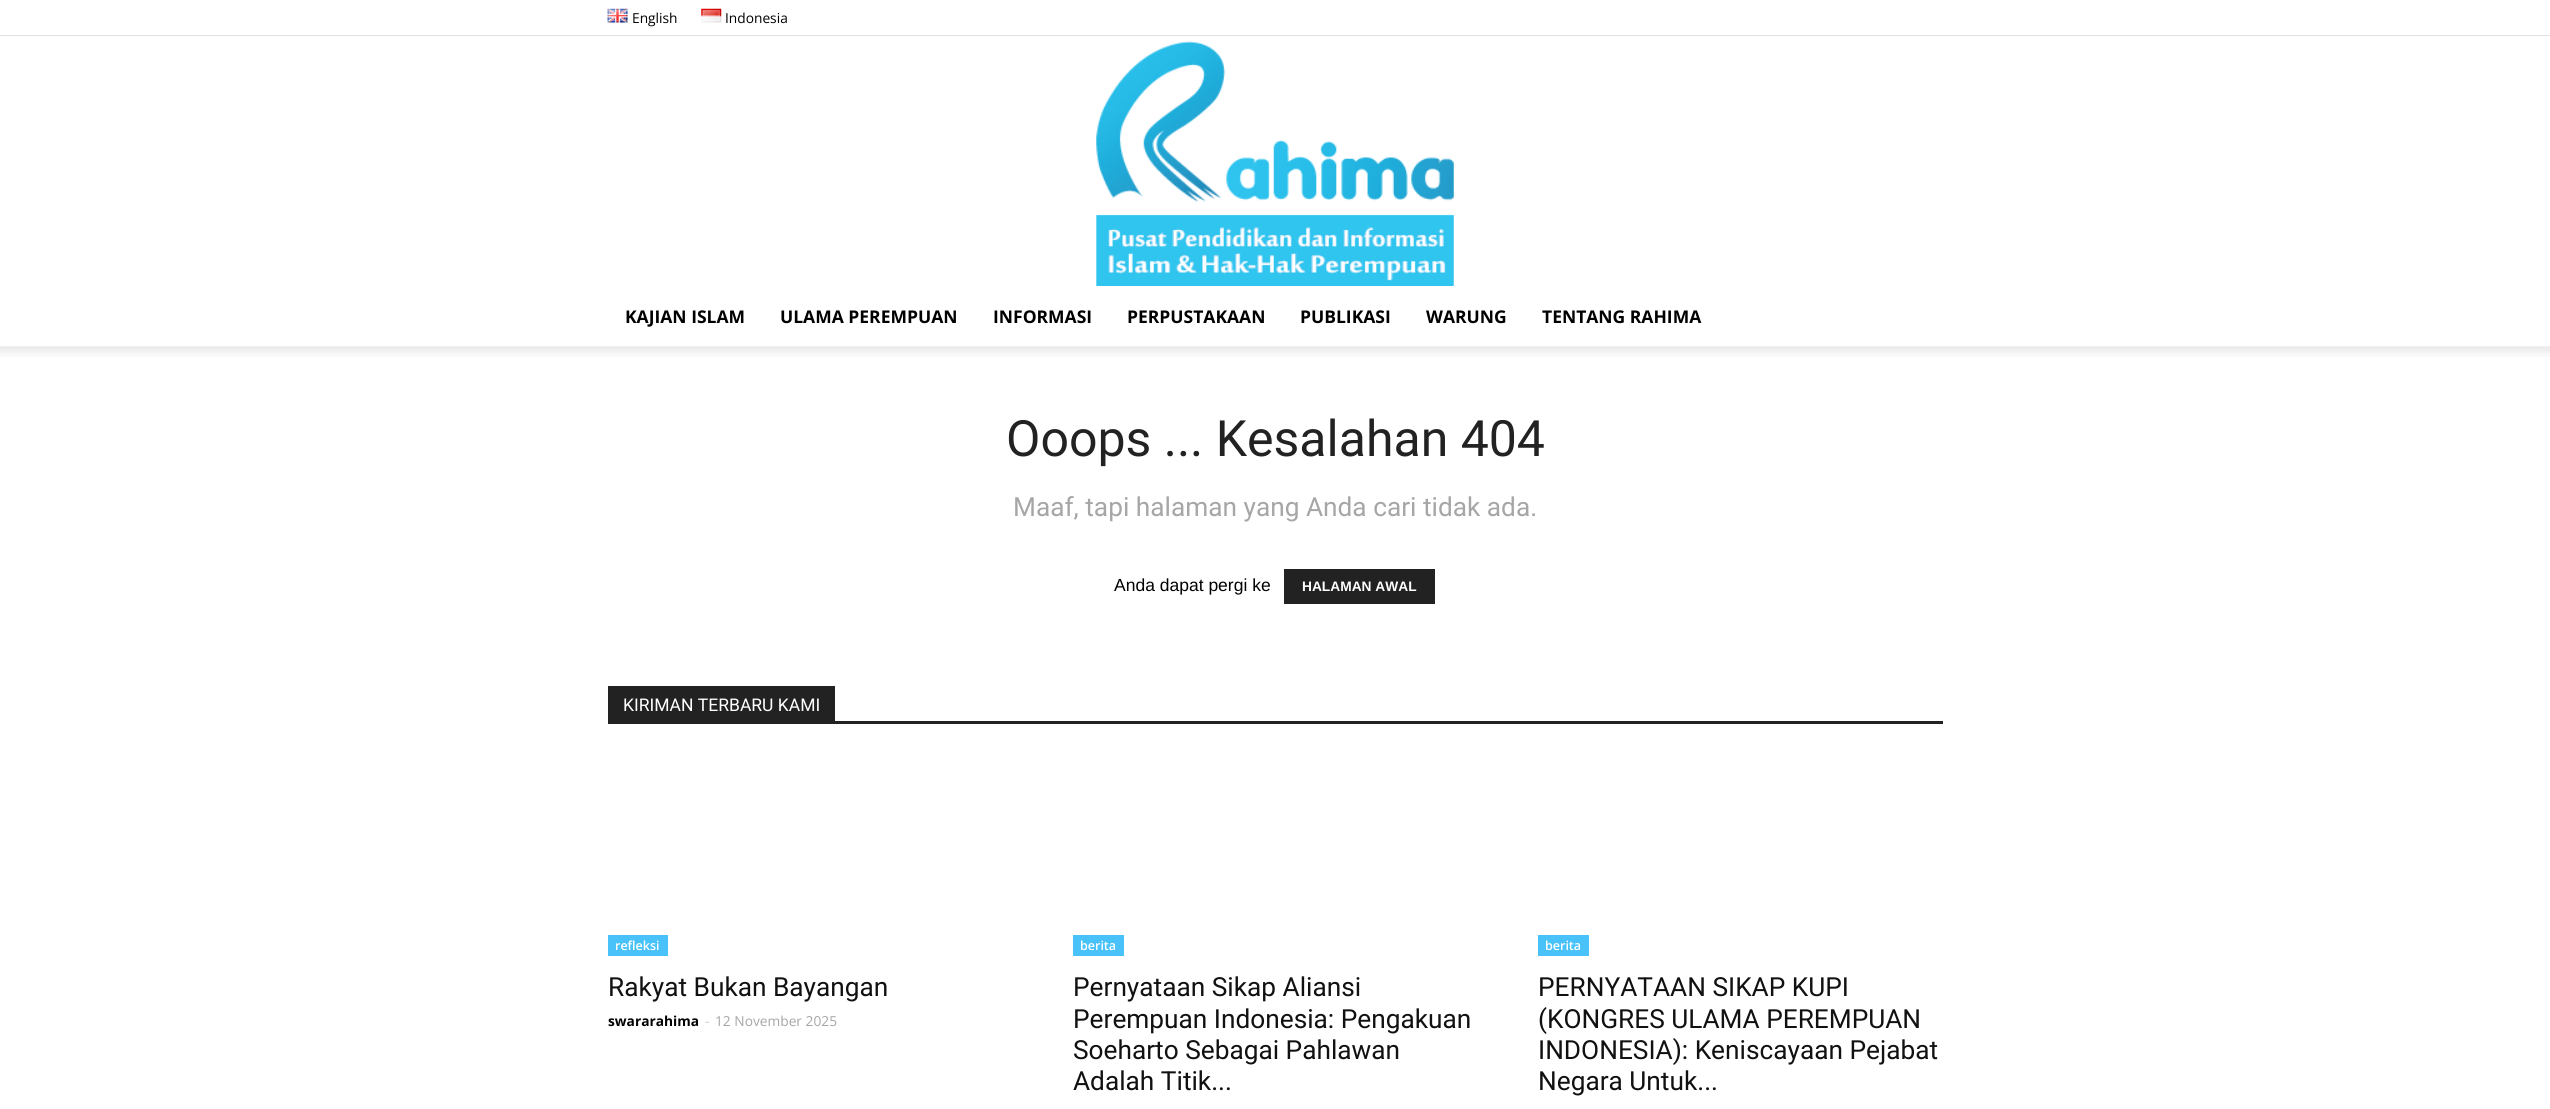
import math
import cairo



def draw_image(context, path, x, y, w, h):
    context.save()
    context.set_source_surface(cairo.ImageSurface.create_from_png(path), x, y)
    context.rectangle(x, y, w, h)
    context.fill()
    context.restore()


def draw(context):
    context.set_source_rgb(1, 1, 1)
    context.paint()
    context.set_source_rgb(224 / 255, 224 / 255, 224 / 255)
    context.rectangle(0, 35, 2550, 1)
    context.fill()
    draw_image(context, "images/1.png", 607, 8, 21, 15)
    draw_image(context, "images/2.png", 701, 8, 21, 15)
    draw_image(context, "images/3.png", 1096, 41, 358, 245)
    draw_image(context, "images/4.png", 0, 346, 2550, 11)
    context.set_source_rgb(34 / 255, 34 / 255, 34 / 255)
    context.rectangle(1284, 569, 151, 35)
    context.fill()
    context.rectangle(608, 721, 1335, 3)
    context.fill()
    context.rectangle(608, 686, 227, 35)
    context.fill()
    context.set_source_rgb(73 / 255, 194 / 255, 249 / 255)
    context.rectangle(608, 935, 60, 21)
    context.fill()
    context.rectangle(1073, 935, 51, 21)
    context.fill()
    context.rectangle(1538, 935, 51, 21)
    context.fill()
    context.select_font_face("Open Sans")
    context.set_font_size(13.75)
    context.set_source_rgb(0, 0, 0)
    context.move_to(632, 23)
    context.show_text("English")
    context.move_to(725, 23)
    context.show_text("Indonesia")
    context.select_font_face("Open Sans", cairo.FontSlant.NORMAL, cairo.FontWeight.BOLD)
    context.set_font_size(17.5)
    context.move_to(625, 323)
    context.show_text("KAJIAN ISLAM")
    context.move_to(780, 323)
    context.show_text("ULAMA PEREMPUAN")
    context.move_to(993, 323)
    context.show_text("INFORMASI")
    context.move_to(1127, 323)
    context.show_text("PERPUSTAKAAN")
    context.move_to(1300, 323)
    context.show_text("PUBLIKASI")
    context.move_to(1426, 323)
    context.show_text("WARUNG")
    context.move_to(1542, 323)
    context.show_text("TENTANG RAHIMA")
    context.select_font_face("Roboto")
    context.set_font_size(50)
    context.set_source_rgb(34 / 255, 34 / 255, 34 / 255)
    context.move_to(1006, 456)
    context.show_text("Ooops ... Kesalahan 404")
    context.set_font_size(26.25)
    context.set_source_rgb(166 / 255, 166 / 255, 166 / 255)
    context.move_to(1013, 516)
    context.show_text("Maaf, tapi halaman yang Anda cari tidak ada.")
    context.select_font_face("Liberation Sans")
    context.set_font_size(17.5)
    context.set_source_rgb(0, 0, 0)
    context.move_to(1114, 591)
    context.show_text("Anda dapat pergi ke")
    context.select_font_face("Liberation Sans", cairo.FontSlant.NORMAL, cairo.FontWeight.BOLD)
    context.set_font_size(13.75)
    context.set_source_rgb(1, 1, 1)
    context.move_to(1302, 591)
    context.show_text("HALAMAN AWAL")
    context.select_font_face("Roboto")
    context.set_font_size(17.5)
    context.move_to(623, 711)
    context.show_text("KIRIMAN TERBARU KAMI")
    context.select_font_face("Open Sans SemiBold")
    context.set_font_size(12.5)
    context.move_to(615, 950)
    context.show_text("refleksi")
    context.select_font_face("Roboto")
    context.set_font_size(26.25)
    context.set_source_rgb(17 / 255, 17 / 255, 17 / 255)
    context.move_to(608, 996)
    context.show_text("Rakyat Bukan Bayangan")
    context.select_font_face("Open Sans", cairo.FontSlant.NORMAL, cairo.FontWeight.BOLD)
    context.set_font_size(13.75)
    context.set_source_rgb(0, 0, 0)
    context.move_to(608, 1026)
    context.show_text("swararahima")
    context.select_font_face("Open Sans")
    context.set_source_rgb(204 / 255, 204 / 255, 204 / 255)
    context.move_to(705, 1026)
    context.show_text("-")
    context.set_source_rgb(166 / 255, 166 / 255, 166 / 255)
    context.move_to(715, 1026)
    context.show_text("12 November 2025")
    context.select_font_face("Open Sans SemiBold")
    context.set_font_size(12.5)
    context.set_source_rgb(1, 1, 1)
    context.move_to(1080, 950)
    context.show_text("berita")
    context.select_font_face("Roboto")
    context.set_font_size(26.25)
    context.set_source_rgb(17 / 255, 17 / 255, 17 / 255)
    context.move_to(1073, 996)
    context.show_text("Pernyataan Sikap Aliansi")
    context.move_to(1073, 1028)
    context.show_text("Perempuan Indonesia: Pengakuan")
    context.move_to(1073, 1059)
    context.show_text("Soeharto Sebagai Pahlawan")
    context.move_to(1073, 1090)
    context.show_text("Adalah Titik...")
    context.select_font_face("Open Sans SemiBold")
    context.set_font_size(12.5)
    context.set_source_rgb(1, 1, 1)
    context.move_to(1545, 950)
    context.show_text("berita")
    context.select_font_face("Roboto")
    context.set_font_size(26.25)
    context.set_source_rgb(17 / 255, 17 / 255, 17 / 255)
    context.move_to(1538, 996)
    context.show_text("PERNYATAAN SIKAP KUPI")
    context.move_to(1538, 1028)
    context.show_text("(KONGRES ULAMA PEREMPUAN")
    context.move_to(1538, 1059)
    context.show_text("INDONESIA): Keniscayaan Pejabat")
    context.move_to(1538, 1090)
    context.show_text("Negara Untuk...")


surface = cairo.ImageSurface(cairo.Format.RGB24, 2550, 1109)
context = cairo.Context(surface)
options = cairo.FontOptions()
options.set_hint_metrics(cairo.HintMetrics.OFF)
options.set_hint_style(cairo.HintStyle.NONE)
context.set_font_options(options)
context.set_miter_limit(4)
draw(context)
surface.write_to_png("out.png")
